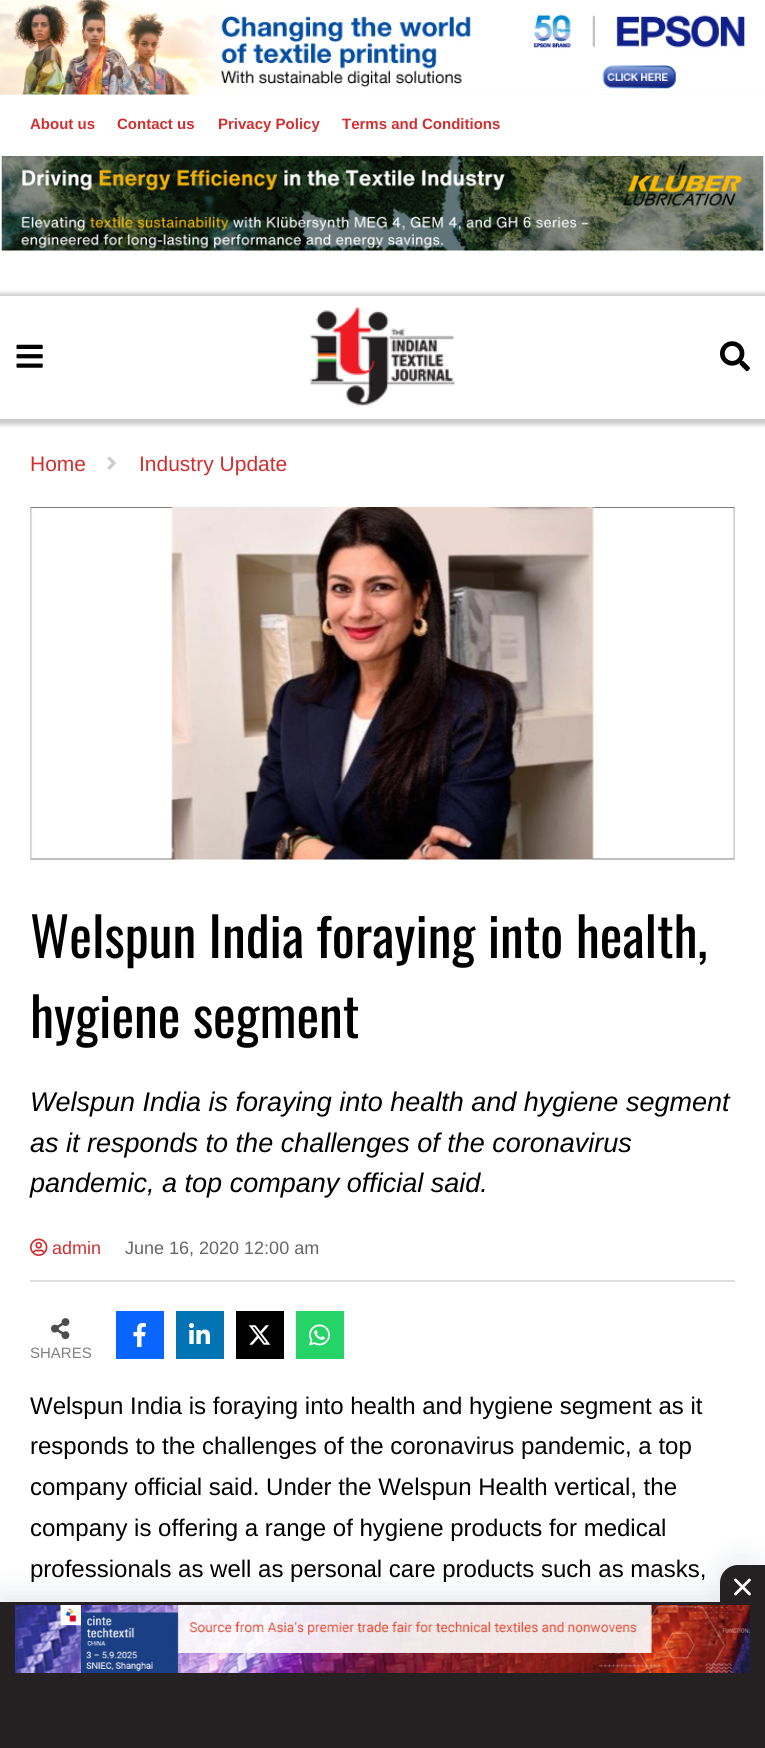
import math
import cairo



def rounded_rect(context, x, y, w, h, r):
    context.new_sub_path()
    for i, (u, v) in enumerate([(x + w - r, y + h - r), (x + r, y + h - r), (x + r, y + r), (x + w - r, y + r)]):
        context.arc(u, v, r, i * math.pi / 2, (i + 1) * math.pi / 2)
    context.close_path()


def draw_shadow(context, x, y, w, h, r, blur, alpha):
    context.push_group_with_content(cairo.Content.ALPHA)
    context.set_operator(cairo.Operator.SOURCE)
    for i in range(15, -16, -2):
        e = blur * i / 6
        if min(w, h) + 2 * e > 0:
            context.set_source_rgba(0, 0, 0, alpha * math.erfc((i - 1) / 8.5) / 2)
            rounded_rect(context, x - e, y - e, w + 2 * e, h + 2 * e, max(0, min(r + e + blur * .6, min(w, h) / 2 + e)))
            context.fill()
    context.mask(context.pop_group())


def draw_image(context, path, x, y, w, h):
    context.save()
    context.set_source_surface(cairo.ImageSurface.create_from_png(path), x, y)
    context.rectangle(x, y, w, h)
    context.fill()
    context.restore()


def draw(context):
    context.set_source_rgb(248 / 255, 248 / 255, 248 / 255)
    context.paint()
    draw_image(context, "images/1.png", 0, 0, 765, 95)
    context.set_source_rgb(1, 1, 1)
    context.rectangle(0, 95, 765, 201)
    context.fill()
    draw_image(context, "images/2.png", 1, 156, 763, 95)
    context.rectangle(0, 419, 765, 1183)
    context.fill()
    context.set_source_rgb(0, 0, 0)
    draw_shadow(context, -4, 293, 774, 132, 0, 2, 0.2)
    context.set_source_rgb(1, 1, 1)
    context.rectangle(0, 296, 765, 123)
    context.fill()
    draw_image(context, "images/3.png", 16, 344, 27, 24)
    draw_image(context, "images/4.png", 310, 307, 145, 99)
    draw_image(context, "images/5.png", 720, 341, 30, 31)
    draw_image(context, "images/6.png", 107, 456, 9, 14)
    draw_image(context, "images/7.png", 30, 507, 705, 353)
    context.set_source_rgb(221 / 255, 221 / 255, 221 / 255)
    context.rectangle(30, 1280, 705, 2)
    context.fill()
    draw_image(context, "images/8.png", 30, 1238, 18, 18)
    draw_image(context, "images/9.png", 51, 1318, 19, 22)
    context.set_source_rgb(8 / 255, 102 / 255, 1)
    context.rectangle(116, 1311, 48, 48)
    context.fill()
    draw_image(context, "images/10.png", 133, 1323, 13, 24)
    context.set_source_rgb(2 / 255, 116 / 255, 179 / 255)
    context.rectangle(176, 1311, 48, 48)
    context.fill()
    draw_image(context, "images/11.png", 189, 1323, 21, 21)
    context.set_source_rgb(0, 0, 0)
    context.rectangle(236, 1311, 48, 48)
    context.fill()
    draw_image(context, "images/12.png", 248, 1325, 23, 20)
    context.set_source_rgb(37 / 255, 211 / 255, 102 / 255)
    context.rectangle(296, 1311, 48, 48)
    context.fill()
    draw_image(context, "images/13.png", 309, 1324, 21, 22)
    context.set_source_rgb(9 / 255, 32 / 255, 76 / 255)
    draw_shadow(context, 0, 1593, 765, 147, 0, 13.5, 0.1)
    context.set_source_rgb(37 / 255, 33 / 255, 34 / 255)
    context.rectangle(0, 1602, 765, 146)
    context.fill()
    context.set_source_rgb(9 / 255, 32 / 255, 76 / 255)
    draw_shadow(context, 720, 1556, 45, 45, 18, 13.5, 0.08)
    context.set_source_rgb(37 / 255, 33 / 255, 34 / 255)
    context.new_path()
    context.move_to(738, 1565)
    context.line_to(765, 1565)
    context.line_to(765, 1610)
    context.line_to(720, 1610)
    context.line_to(720, 1583)
    context.curve_to(720, 1573, 728, 1565, 738, 1565)
    context.close_path()
    context.fill()
    draw_image(context, "images/14.png", 734, 1578, 17, 18)
    draw_image(context, "images/15.png", 15, 1605, 735, 68)
    context.select_font_face("Liberation Sans", cairo.FontSlant.NORMAL, cairo.FontWeight.BOLD)
    context.set_font_size(15)
    context.set_source_rgb(209 / 255, 47 / 255, 47 / 255)
    context.move_to(30, 129)
    context.show_text("About us")
    context.move_to(117, 129)
    context.show_text("Contact us")
    context.move_to(218, 129)
    context.show_text("Privacy Policy")
    context.move_to(342, 129)
    context.show_text("Terms and Conditions")
    context.select_font_face("Liberation Sans")
    context.set_font_size(21)
    context.move_to(30, 471)
    context.show_text("Home")
    context.move_to(139, 471)
    context.show_text("Industry Update")
    context.select_font_face("Oswald")
    context.set_font_size(54)
    context.set_source_rgb(0, 0, 0)
    context.move_to(30, 958)
    context.show_text("Welspun India foraying into health,")
    context.move_to(30, 1038)
    context.show_text("hygiene segment")
    context.select_font_face("Liberation Sans", cairo.FontSlant.ITALIC)
    context.set_font_size(27)
    context.move_to(30, 1111)
    context.show_text("Welspun India is foraying into health and hygiene segment")
    context.move_to(30, 1152)
    context.show_text("as it responds to the challenges of the coronavirus")
    context.move_to(30, 1192)
    context.show_text("pandemic, a top company official said.")
    context.select_font_face("Liberation Sans")
    context.set_font_size(18)
    context.set_source_rgb(209 / 255, 47 / 255, 47 / 255)
    context.move_to(52, 1254)
    context.show_text("admin")
    context.set_source_rgb(102 / 255, 102 / 255, 102 / 255)
    context.move_to(125, 1254)
    context.show_text("June 16, 2020 12:00 am")
    context.set_font_size(15)
    context.set_source_rgb(128 / 255, 128 / 255, 128 / 255)
    context.move_to(30, 1358)
    context.show_text("SHARES")
    context.set_font_size(24)
    context.set_source_rgb(0, 0, 0)
    context.move_to(30, 1414)
    context.show_text("Welspun India is foraying into health and hygiene segment as it")
    context.move_to(30, 1454)
    context.show_text("responds to the challenges of the coronavirus pandemic, a top")
    context.move_to(30, 1495)
    context.show_text("company official said. Under the Welspun Health vertical, the")
    context.move_to(30, 1536)
    context.show_text("company is offering a range of hygiene products for medical")
    context.move_to(30, 1577)
    context.show_text("professionals as well as personal care products such as masks,")


surface = cairo.ImageSurface(cairo.Format.RGB24, 765, 1748)
context = cairo.Context(surface)
options = cairo.FontOptions()
options.set_hint_metrics(cairo.HintMetrics.OFF)
options.set_hint_style(cairo.HintStyle.NONE)
context.set_font_options(options)
context.set_miter_limit(4)
draw(context)
surface.write_to_png("out.png")
